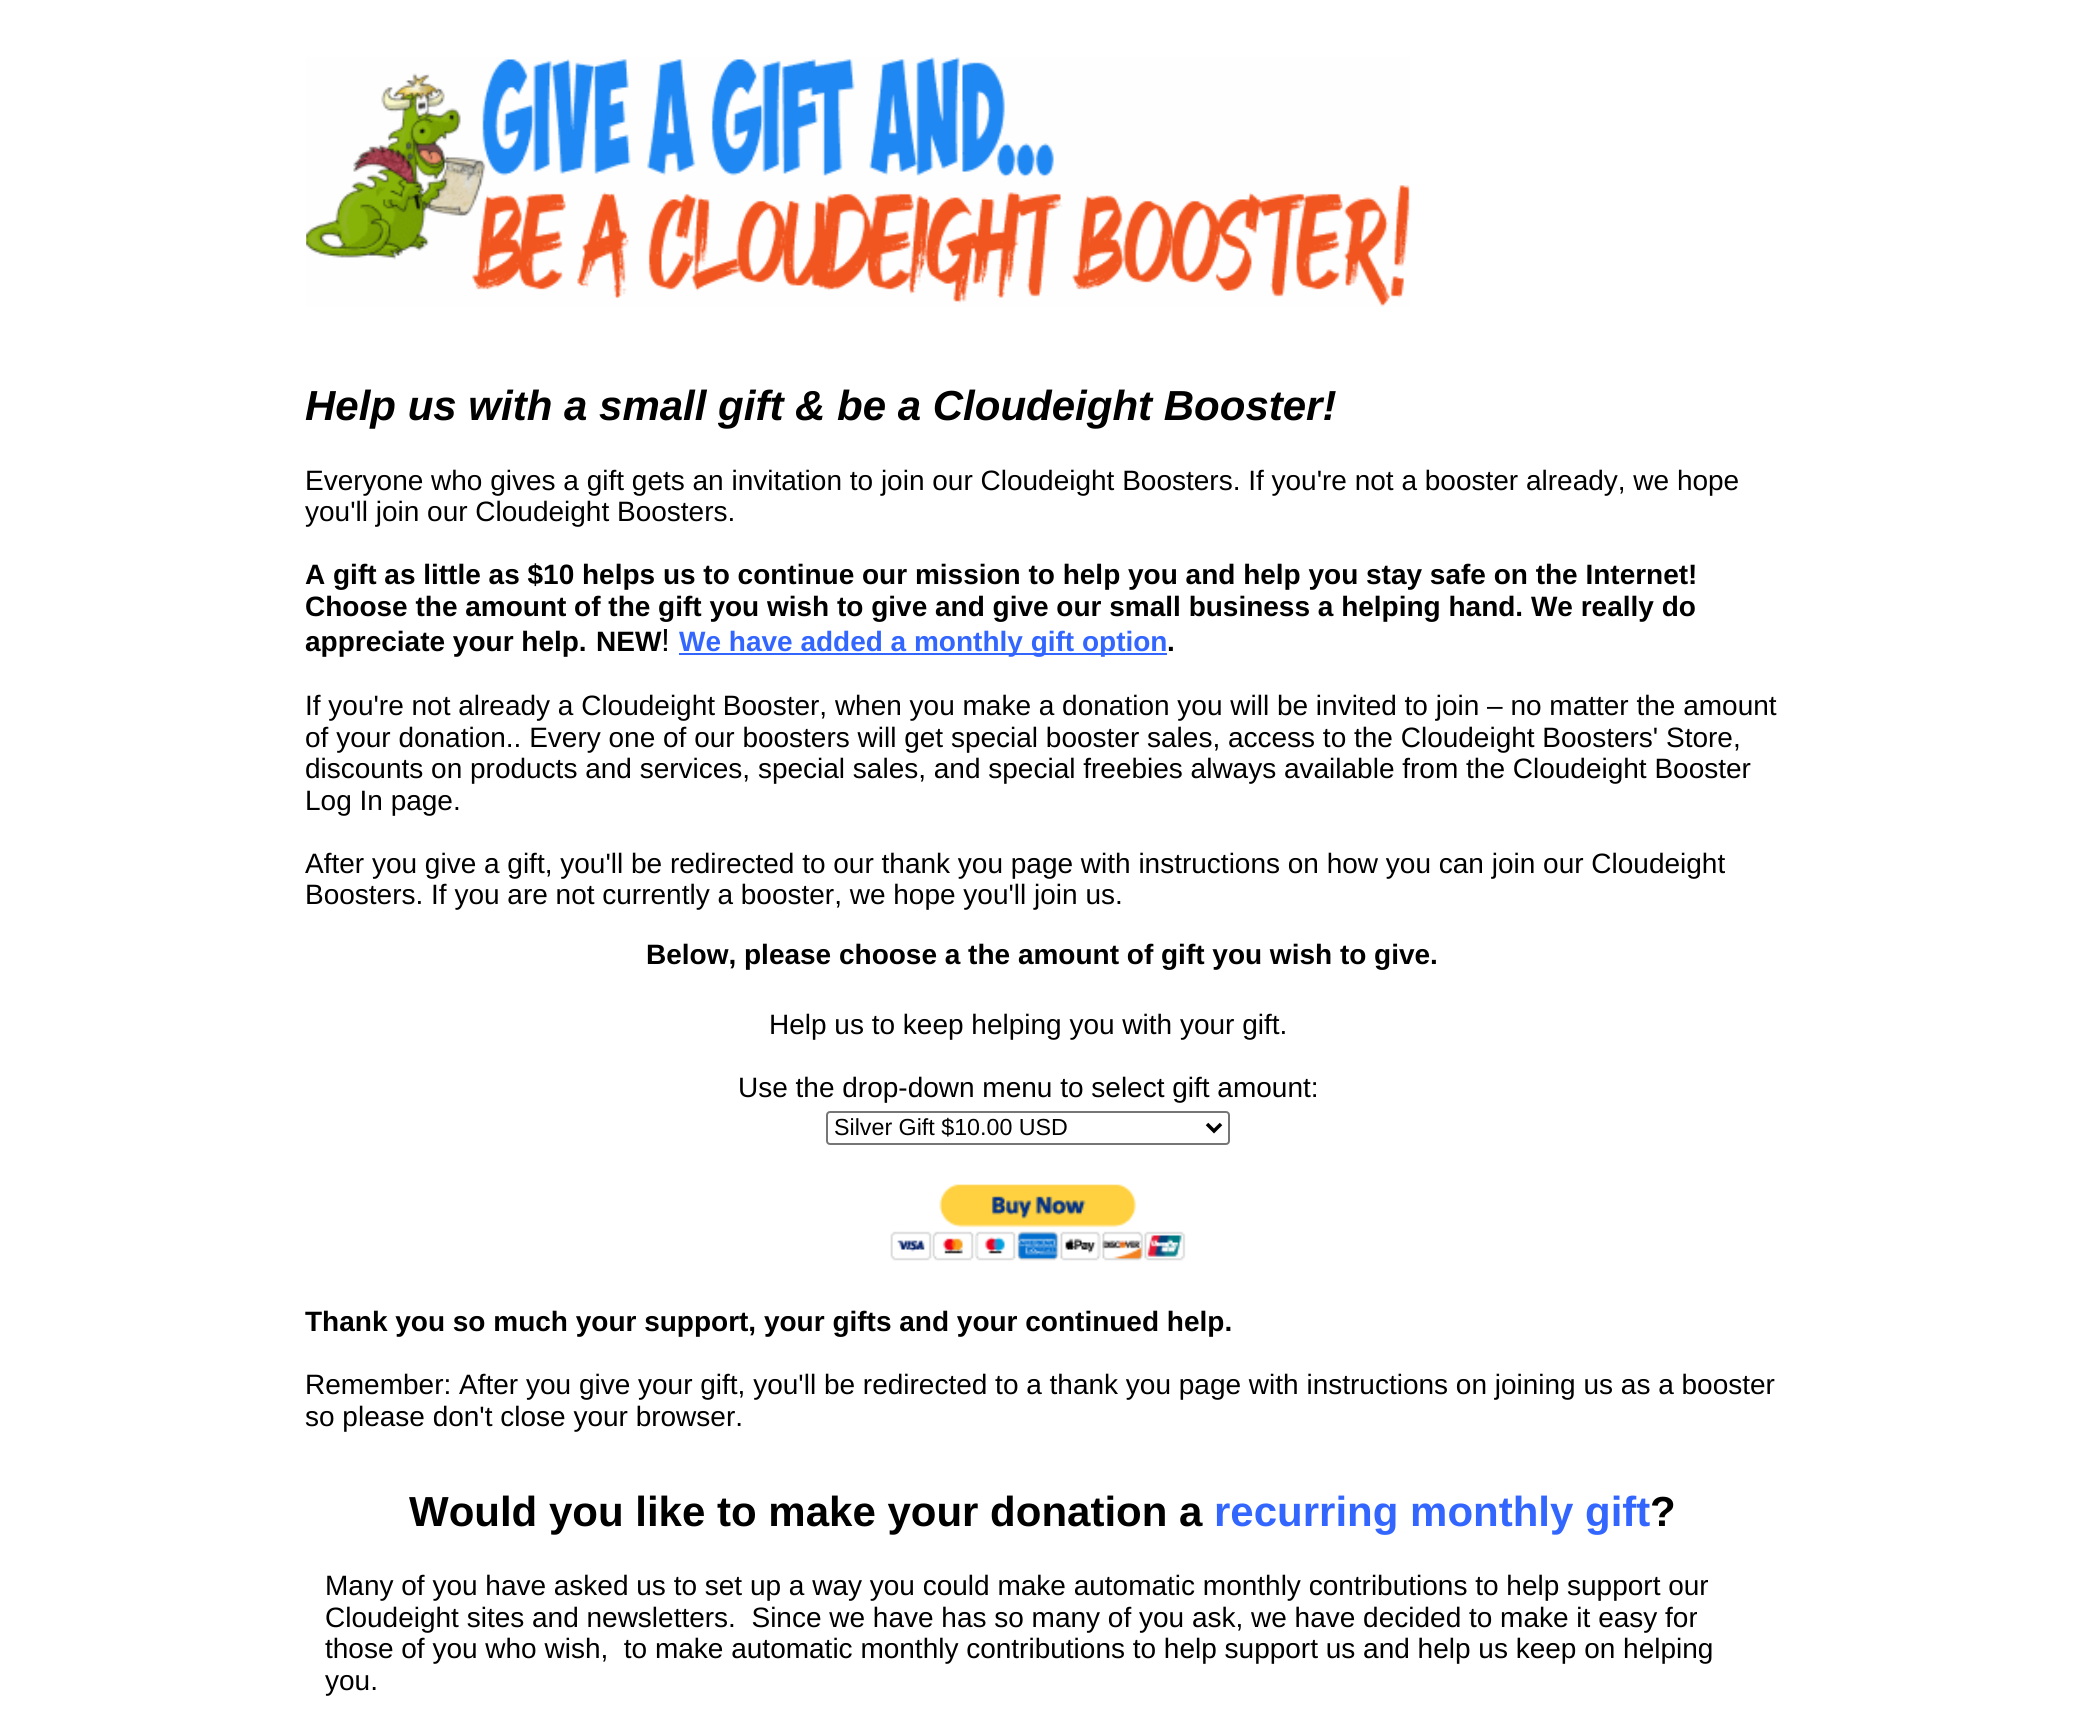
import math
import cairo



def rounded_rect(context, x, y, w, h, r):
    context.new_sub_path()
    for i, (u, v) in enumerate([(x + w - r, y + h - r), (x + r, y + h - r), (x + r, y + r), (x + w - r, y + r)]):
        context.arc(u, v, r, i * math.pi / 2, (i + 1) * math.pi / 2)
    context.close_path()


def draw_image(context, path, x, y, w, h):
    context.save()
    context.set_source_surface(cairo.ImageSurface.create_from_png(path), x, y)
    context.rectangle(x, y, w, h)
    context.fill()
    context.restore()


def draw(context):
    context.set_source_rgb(1, 1, 1)
    context.paint()
    draw_image(context, "images/1.png", 306, 57, 1104, 250)
    context.set_source_rgb(51 / 255, 102 / 255, 1)
    context.rectangle(679, 653, 488, 2)
    context.fill()
    rounded_rect(context, 827, 1112, 402, 32, 3)
    context.set_source_rgb(118 / 255, 118 / 255, 118 / 255)
    context.stroke()
    context.new_path()
    context.move_to(1207, 1124)
    context.line_to(1214, 1131)
    context.line_to(1221, 1124)
    context.set_source_rgb(0, 0, 0)
    context.set_line_width(3.5)
    context.stroke()
    draw_image(context, "images/2.png", 890, 1184, 296, 77)
    context.select_font_face("Liberation Sans", cairo.FontSlant.ITALIC, cairo.FontWeight.BOLD)
    context.set_font_size(42)
    context.move_to(305, 420)
    context.show_text("Help us with a small gift & be a Cloudeight Booster!")
    context.select_font_face("Liberation Sans")
    context.set_font_size(28)
    context.move_to(305, 490)
    context.show_text("Everyone who gives a gift gets an invitation to join our Cloudeight Boosters. If you're not a booster already, we hope")
    context.move_to(305, 521)
    context.show_text("you'll join our Cloudeight Boosters.")
    context.select_font_face("Liberation Sans", cairo.FontSlant.NORMAL, cairo.FontWeight.BOLD)
    context.move_to(305, 584)
    context.show_text("A gift as little as $10 helps us to continue our mission to help you and help you stay safe on the Internet!")
    context.move_to(305, 616)
    context.show_text("Choose the amount of the gift you wish to give and give our small business a helping hand. We really do")
    context.move_to(596, 651)
    context.show_text("NEW")
    context.select_font_face("Liberation Sans")
    context.set_font_size(32)
    context.move_to(661, 651)
    context.show_text("!")
    context.select_font_face("Liberation Sans", cairo.FontSlant.NORMAL, cairo.FontWeight.BOLD)
    context.set_font_size(28)
    context.set_source_rgb(51 / 255, 102 / 255, 1)
    context.move_to(679, 651)
    context.show_text("We have added a monthly gift option")
    context.set_source_rgb(0, 0, 0)
    context.move_to(1167, 651)
    context.show_text(".")
    context.select_font_face("Liberation Sans")
    context.move_to(305, 715)
    context.show_text("If you're not already a Cloudeight Booster, when you make a donation you will be invited to join – no matter the amount")
    context.move_to(305, 747)
    context.show_text("of your donation.. Every one of our boosters will get special booster sales, access to the Cloudeight Boosters' Store,")
    context.move_to(305, 778)
    context.show_text("discounts on products and services, special sales, and special freebies always available from the Cloudeight Booster")
    context.move_to(305, 810)
    context.show_text("Log In page.")
    context.move_to(305, 873)
    context.show_text("After you give a gift, you'll be redirected to our thank you page with instructions on how you can join our Cloudeight")
    context.move_to(305, 904)
    context.show_text("Boosters. If you are not currently a booster, we hope you'll join us.")
    context.select_font_face("Liberation Sans", cairo.FontSlant.NORMAL, cairo.FontWeight.BOLD)
    context.move_to(646, 964)
    context.show_text("Below, please choose a the amount of gift you wish to give.")
    context.move_to(305, 651)
    context.show_text("appreciate your help.")
    context.select_font_face("Liberation Sans")
    context.move_to(769, 1034)
    context.show_text("Help us to keep helping you with your gift.")
    context.move_to(738, 1097)
    context.show_text("Use the drop-down menu to select gift amount:")
    context.set_font_size(23.25)
    context.move_to(834, 1135)
    context.show_text("Silver Gift $10.00 USD")
    context.select_font_face("Liberation Sans", cairo.FontSlant.NORMAL, cairo.FontWeight.BOLD)
    context.set_font_size(28)
    context.move_to(305, 1331)
    context.show_text("Thank you so much your support, your gifts and your continued help.")
    context.select_font_face("Liberation Sans")
    context.move_to(305, 1394)
    context.show_text("Remember: After you give your gift, you'll be redirected to a thank you page with instructions on joining us as a booster")
    context.move_to(305, 1426)
    context.show_text("so please don't close your browser.")
    context.select_font_face("Liberation Sans", cairo.FontSlant.NORMAL, cairo.FontWeight.BOLD)
    context.set_font_size(42)
    context.move_to(409, 1526)
    context.show_text("Would you like to make your donation a")
    context.set_source_rgb(51 / 255, 102 / 255, 1)
    context.move_to(1214, 1526)
    context.show_text("recurring monthly gift")
    context.set_source_rgb(0, 0, 0)
    context.move_to(1650, 1526)
    context.show_text("?")
    context.select_font_face("Liberation Sans")
    context.set_font_size(28)
    context.move_to(325, 1595)
    context.show_text("Many of you have asked us to set up a way you could make automatic monthly contributions to help support our")
    context.move_to(325, 1627)
    context.show_text("Cloudeight sites and newsletters.  Since we have has so many of you ask, we have decided to make it easy for")
    context.move_to(325, 1658)
    context.show_text("those of you who wish,  to make automatic monthly contributions to help support us and help us keep on helping")
    context.move_to(325, 1690)
    context.show_text("you.")


surface = cairo.ImageSurface(cairo.Format.RGB24, 2084, 1735)
context = cairo.Context(surface)
options = cairo.FontOptions()
options.set_hint_metrics(cairo.HintMetrics.OFF)
options.set_hint_style(cairo.HintStyle.NONE)
context.set_font_options(options)
context.set_miter_limit(4)
draw(context)
surface.write_to_png("out.png")
